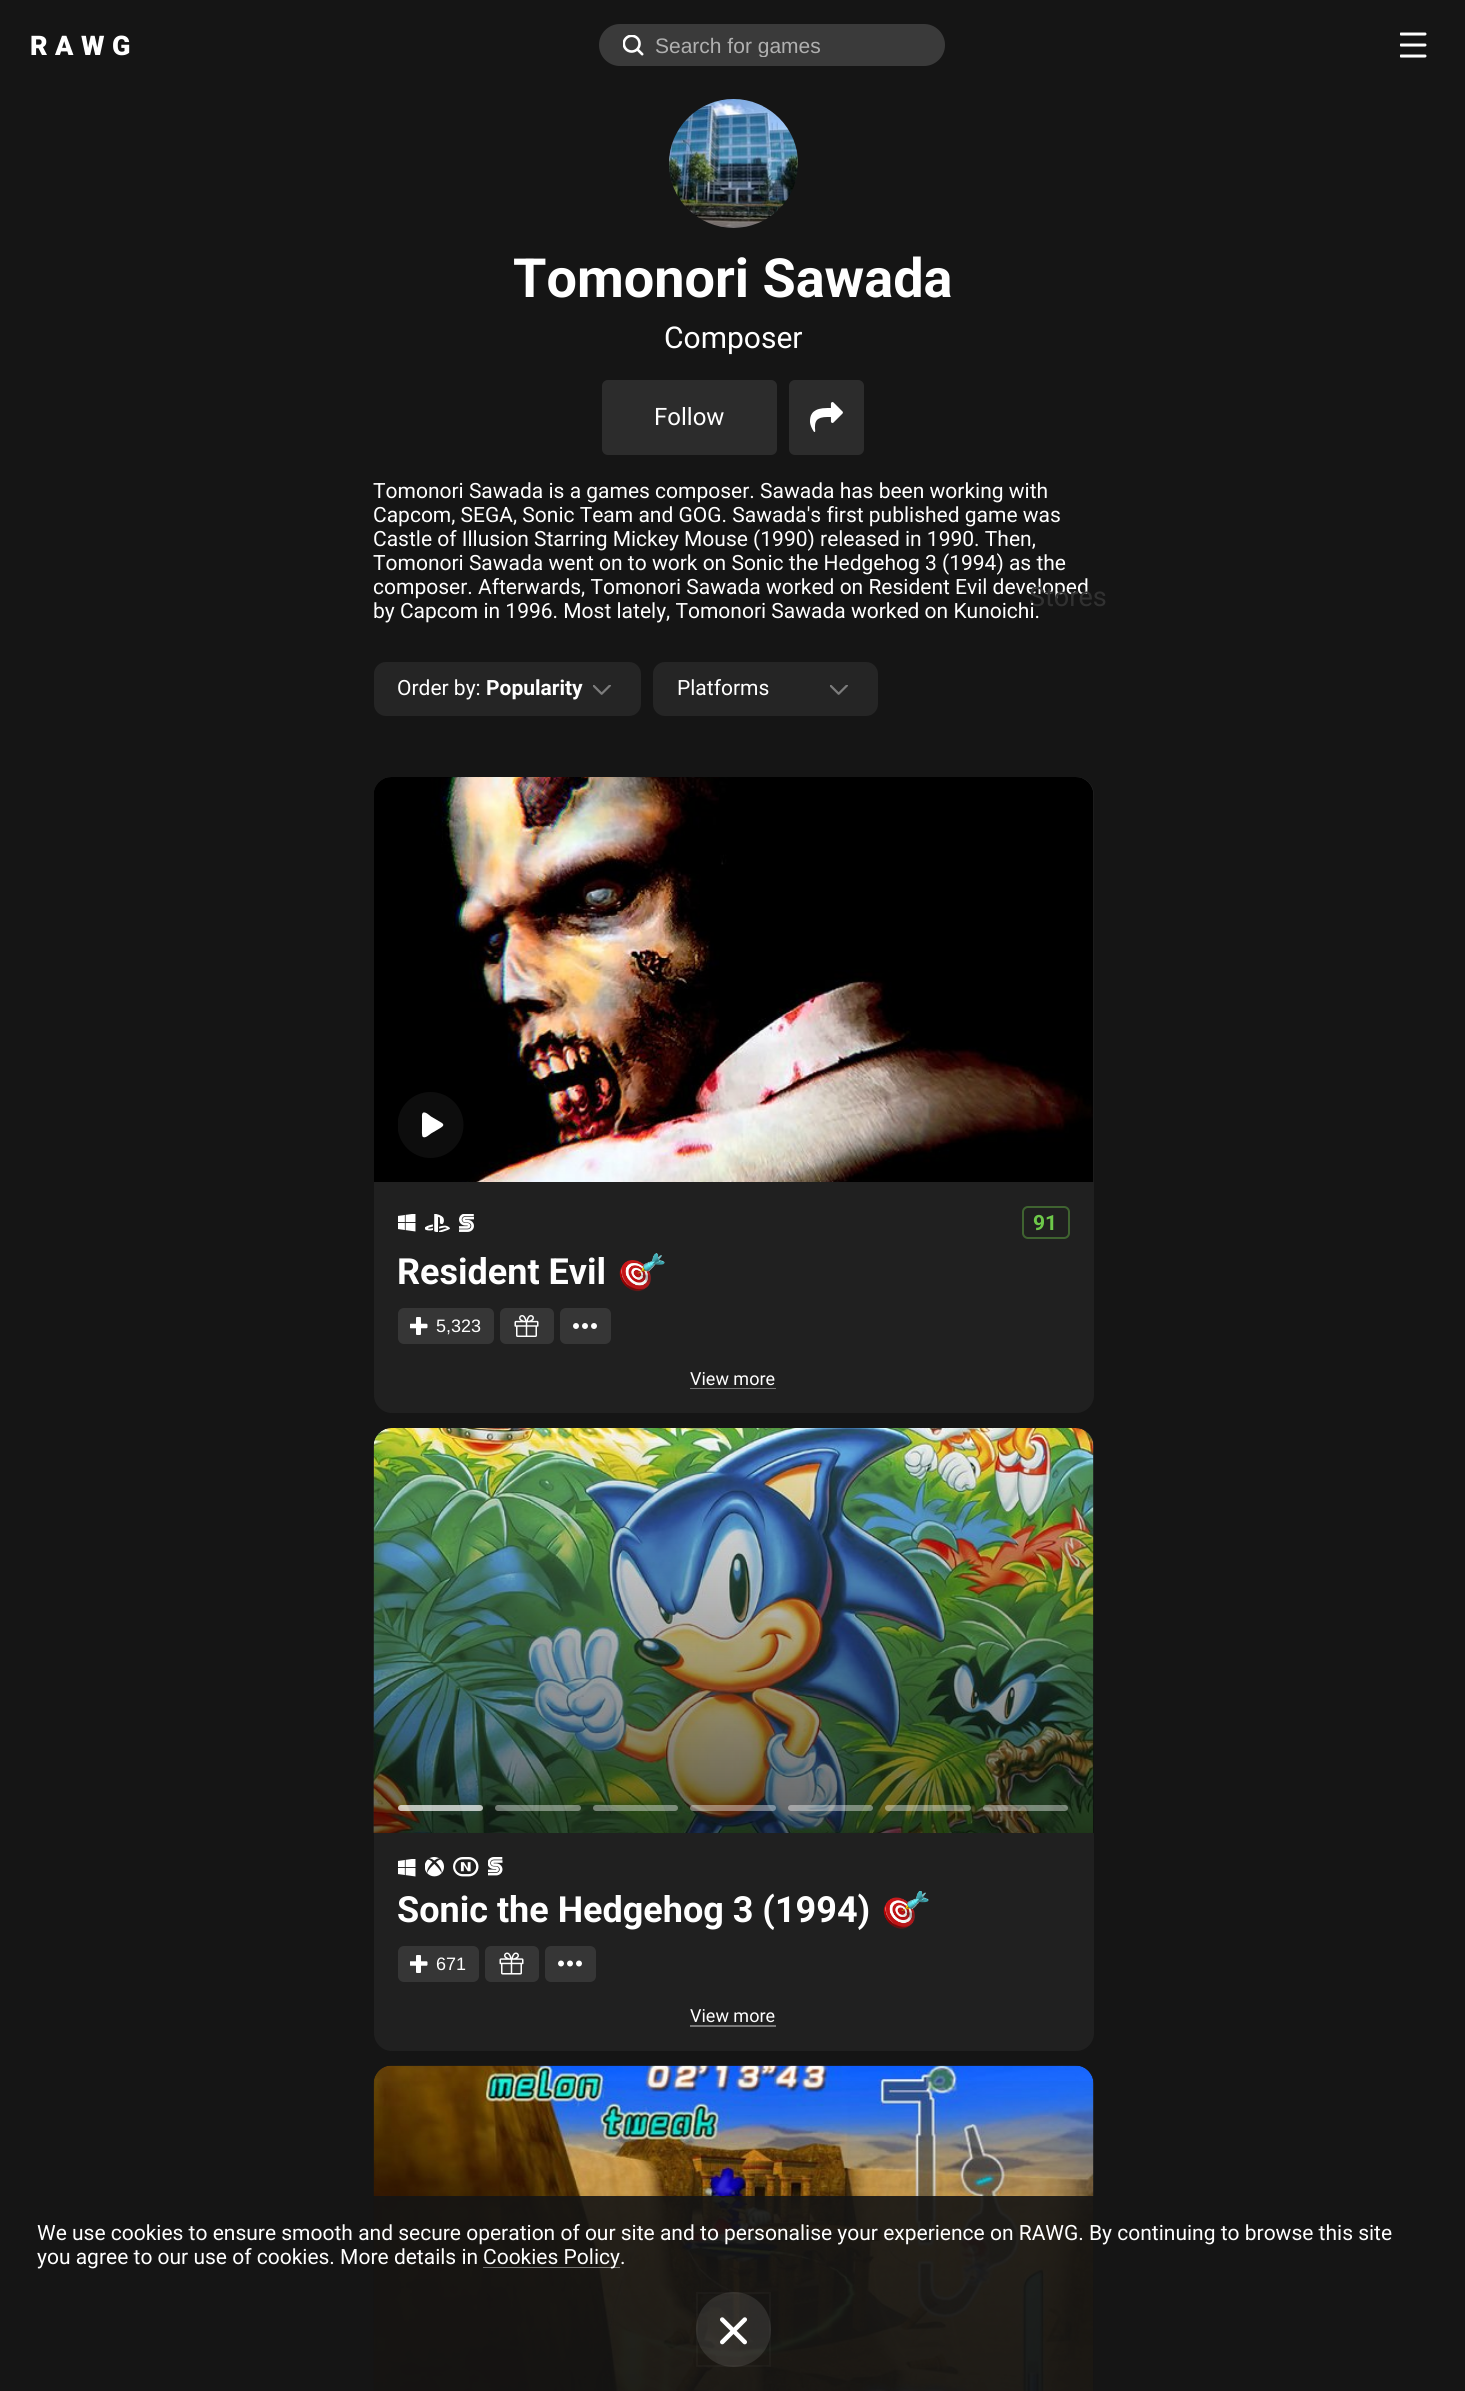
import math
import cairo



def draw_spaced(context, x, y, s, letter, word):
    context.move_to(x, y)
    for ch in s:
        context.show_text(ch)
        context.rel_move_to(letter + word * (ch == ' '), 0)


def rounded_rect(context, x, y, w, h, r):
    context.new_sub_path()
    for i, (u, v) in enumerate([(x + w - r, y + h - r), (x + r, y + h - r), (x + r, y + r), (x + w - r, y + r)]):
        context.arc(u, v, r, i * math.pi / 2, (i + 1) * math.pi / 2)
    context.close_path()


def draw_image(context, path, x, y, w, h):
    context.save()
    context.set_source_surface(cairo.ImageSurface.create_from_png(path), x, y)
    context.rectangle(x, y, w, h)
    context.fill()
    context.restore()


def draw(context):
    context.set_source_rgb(21 / 255, 21 / 255, 21 / 255)
    context.paint()
    context.set_source_rgb(58 / 255, 58 / 255, 58 / 255)
    rounded_rect(context, 599, 24, 346, 42, 21)
    context.fill()
    draw_image(context, "images/1.png", 623, 35, 21, 21)
    context.save()
    context.rectangle(1400, 32, 27, 27)
    context.clip()
    context.new_path()
    context.move_to(1401, 34)
    context.line_to(1425, 34)
    context.move_to(1401, 45)
    context.line_to(1425, 45)
    context.move_to(1401, 56)
    context.line_to(1425, 56)
    context.set_source_rgb(1, 1, 1)
    context.set_line_width(3)
    context.set_line_cap(cairo.LineCap.ROUND)
    context.stroke()
    context.restore()
    draw_image(context, "images/2.png", 669, 99, 129, 129)
    context.set_source_rgb(44 / 255, 44 / 255, 44 / 255)
    rounded_rect(context, 602, 380, 175, 75, 6)
    context.fill()
    rounded_rect(context, 789, 380, 75, 75, 6)
    context.fill()
    draw_image(context, "images/3.png", 810, 402, 33, 30)
    context.set_source_rgb(37 / 255, 37 / 255, 37 / 255)
    rounded_rect(context, 374, 662, 267, 54, 12)
    context.fill()
    draw_image(context, "images/4.png", 593, 685, 18, 10)
    rounded_rect(context, 653, 662, 225, 54, 12)
    context.fill()
    draw_image(context, "images/4.png", 830, 685, 18, 10)
    context.set_source_rgb(32 / 255, 32 / 255, 32 / 255)
    rounded_rect(context, 374, 777, 720, 636, 18)
    context.fill()
    draw_image(context, "images/5.png", 374, 777, 720, 405)
    context.save()
    context.rectangle(398, 1092, 66, 66)
    context.clip()
    context.set_source_rgb(13 / 255, 13 / 255, 13 / 255)
    context.arc(430.5, 1125, 33, 0, 2 * math.pi)
    context.fill()
    context.restore()
    context.set_source_rgb(1, 1, 1)
    context.new_path()
    context.move_to(442, 1123)
    context.line_to(431, 1116.5)
    context.curve_to(429, 1115, 426, 1112, 423.5, 1112.5)
    context.curve_to(421.5, 1113, 422, 1117, 422, 1118)
    context.line_to(422, 1128.5)
    context.curve_to(422, 1129.5, 421.5, 1136.5, 423, 1137)
    context.curve_to(425.5, 1138.5, 429.5, 1134.5, 431, 1133.5)
    context.line_to(439.5, 1128.5)
    context.curve_to(441, 1127.5, 445.5, 1125.5, 442, 1123)
    context.close_path()
    context.fill()
    draw_image(context, "images/6.png", 398, 1214, 18, 18)
    draw_image(context, "images/7.png", 425, 1214, 25, 18)
    draw_image(context, "images/8.png", 459, 1214, 15, 18)
    rounded_rect(context, 1023, 1207, 46, 31, 5)
    context.set_source_rgb(63 / 255, 99 / 255, 48 / 255)
    context.stroke()
    draw_image(context, "images/9.png", 619, 1253, 46, 39)
    context.set_source_rgb(54 / 255, 54 / 255, 54 / 255)
    rounded_rect(context, 398, 1308, 96, 36, 6)
    context.fill()
    draw_image(context, "images/10.png", 410, 1317, 18, 18)
    rounded_rect(context, 500, 1308, 54, 36, 6)
    context.fill()
    draw_image(context, "images/11.png", 514, 1315, 25, 22)
    rounded_rect(context, 560, 1308, 51, 36, 6)
    context.fill()
    draw_image(context, "images/12.png", 573, 1323, 24, 6)
    context.set_source_rgb(121 / 255, 121 / 255, 121 / 255)
    context.rectangle(690, 1388, 86, 1)
    context.fill()
    context.set_source_rgb(32 / 255, 32 / 255, 32 / 255)
    rounded_rect(context, 374, 1428, 720, 623, 18)
    context.fill()
    draw_image(context, "images/13.png", 373, 1428, 721, 405)
    gradient = cairo.LinearGradient(734, 1428, 734, 1833)
    gradient.add_color_stop_rgba(0, 0, 0, 0, 0)
    gradient.add_color_stop_rgba(1, 0, 0, 0, 0.6)
    context.set_source(gradient)
    context.rectangle(374, 1443, 720, 390)
    context.fill()
    context.set_source_rgba(1, 1, 1, 0.7)
    rounded_rect(context, 398, 1805, 85, 6, 3)
    context.fill()
    context.set_source_rgba(1, 1, 1, 0.4)
    rounded_rect(context, 495, 1805, 86, 6, 3)
    context.fill()
    rounded_rect(context, 593, 1805, 85, 6, 3)
    context.fill()
    rounded_rect(context, 690, 1805, 86, 6, 3)
    context.fill()
    rounded_rect(context, 788, 1805, 85, 6, 3)
    context.fill()
    rounded_rect(context, 885, 1805, 86, 6, 3)
    context.fill()
    rounded_rect(context, 983, 1805, 85, 6, 3)
    context.fill()
    draw_image(context, "images/6.png", 398, 1859, 18, 18)
    draw_image(context, "images/14.png", 425, 1857, 19, 20)
    draw_image(context, "images/15.png", 453, 1857, 26, 20)
    draw_image(context, "images/16.png", 488, 1857, 15, 19)
    draw_image(context, "images/17.png", 883, 1891, 46, 38)
    context.set_source_rgb(54 / 255, 54 / 255, 54 / 255)
    rounded_rect(context, 398, 1946, 81, 36, 6)
    context.fill()
    draw_image(context, "images/18.png", 410, 1955, 18, 18)
    rounded_rect(context, 485, 1946, 54, 36, 6)
    context.fill()
    draw_image(context, "images/19.png", 499, 1952, 25, 23)
    rounded_rect(context, 545, 1946, 51, 36, 6)
    context.fill()
    draw_image(context, "images/20.png", 558, 1960, 24, 7)
    context.set_source_rgb(121 / 255, 121 / 255, 121 / 255)
    context.rectangle(690, 2025, 86, 2)
    context.fill()
    context.set_source_rgb(32 / 255, 32 / 255, 32 / 255)
    rounded_rect(context, 374, 2066, 720, 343, 18)
    context.fill()
    draw_image(context, "images/21.png", 373, 2065, 721, 326)
    gradient = cairo.LinearGradient(734, 2066, 734, 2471)
    gradient.add_color_stop_rgba(0, 0, 0, 0, 0)
    gradient.add_color_stop_rgba(1, 0, 0, 0, 0.6)
    context.set_source(gradient)
    context.rectangle(374, 2081, 720, 310)
    context.fill()
    context.set_source_rgba(21 / 255, 21 / 255, 21 / 255, 0.9)
    context.rectangle(373, 2196, 721, 195)
    context.fill()
    context.set_source_rgba(1, 1, 1, 0.4)
    context.rectangle(483, 2267, 137, 1)
    context.fill()
    context.set_source_rgba(1, 1, 1, 0.1)
    context.arc(733.5, 2329.5, 37.5, 0, 2 * math.pi)
    context.fill()
    context.rectangle(697, 2293, 73, 73)
    context.set_source_rgba(151 / 255, 151 / 255, 151 / 255, 0.05)
    context.stroke()
    draw_image(context, "images/22.png", 720, 2317, 27, 28)
    context.select_font_face("Roboto Black")
    context.set_font_size(27)
    context.set_source_rgb(1, 1, 1)
    draw_spaced(context, 30, 55, "RAWG", 7.5, 0)
    context.save()
    context.rectangle(656, 33, 271, 24)
    context.clip()
    context.select_font_face("Liberation Sans")
    context.set_font_size(21)
    context.set_source_rgb(176 / 255, 176 / 255, 176 / 255)
    context.move_to(655, 53)
    context.show_text("Search for games")
    context.restore()
    context.select_font_face("Roboto", cairo.FontSlant.NORMAL, cairo.FontWeight.BOLD)
    context.set_font_size(54)
    context.move_to(513, 297)
    context.show_text("Tomonori Sawada")
    context.select_font_face("Roboto")
    context.set_font_size(30)
    context.move_to(664, 348)
    context.show_text("Composer")
    context.set_font_size(24)
    context.move_to(654, 425)
    context.show_text("Follow")
    context.set_font_size(21)
    context.move_to(373, 498)
    context.show_text("Tomonori Sawada is a games composer. Sawada has been working with")
    context.move_to(373, 522)
    context.show_text("Capcom, SEGA, Sonic Team and GOG. Sawada's first published game was")
    context.move_to(373, 546)
    context.show_text("Castle of Illusion Starring Mickey Mouse (1990) released in 1990. Then,")
    context.move_to(373, 570)
    context.show_text("Tomonori Sawada went on to work on Sonic the Hedgehog 3 (1994) as the")
    context.move_to(373, 594)
    context.show_text("composer. Afterwards, Tomonori Sawada worked on Resident Evil developed")
    context.set_font_size(27)
    context.set_source_rgb(49 / 255, 49 / 255, 49 / 255)
    context.move_to(1029, 606)
    context.show_text("Stores")
    context.set_font_size(21)
    context.set_source_rgb(1, 1, 1)
    context.move_to(373, 618)
    context.show_text("by Capcom in 1996. Most lately, Tomonori Sawada worked on Kunoichi.")
    context.move_to(397, 695)
    context.show_text("Order by:")
    context.select_font_face("Roboto", cairo.FontSlant.NORMAL, cairo.FontWeight.BOLD)
    context.move_to(486, 695)
    context.show_text("Popularity")
    context.select_font_face("Roboto")
    context.move_to(677, 695)
    context.show_text("Platforms")
    context.select_font_face("Roboto", cairo.FontSlant.NORMAL, cairo.FontWeight.BOLD)
    context.set_source_rgb(109 / 255, 200 / 255, 73 / 255)
    context.move_to(1033, 1230)
    context.show_text("91")
    context.set_font_size(36)
    context.set_source_rgb(1, 1, 1)
    context.move_to(397, 1284)
    context.show_text("Resident Evil")
    context.select_font_face("Liberation Sans")
    context.set_font_size(18)
    context.move_to(436, 1332)
    context.show_text("5,323")
    context.select_font_face("Roboto")
    context.move_to(690, 1385)
    context.show_text("View more")
    context.select_font_face("Roboto", cairo.FontSlant.NORMAL, cairo.FontWeight.BOLD)
    context.set_font_size(36)
    context.move_to(397, 1922)
    context.show_text("Sonic the Hedgehog 3 (1994)")
    context.select_font_face("Liberation Sans")
    context.set_font_size(18)
    context.move_to(436, 1970)
    context.show_text("671")
    context.select_font_face("Roboto")
    context.move_to(690, 2022)
    context.show_text("View more")
    context.set_font_size(21)
    context.move_to(37, 2240)
    context.show_text("We use cookies to ensure smooth and secure operation of our site and to personalise your experience on RAWG. By continuing to browse this site")
    context.move_to(37, 2264)
    context.show_text("you agree to our use of cookies. More details in")
    context.move_to(483, 2264)
    context.show_text("Cookies Policy.")


surface = cairo.ImageSurface(cairo.Format.RGB24, 1465, 2391)
context = cairo.Context(surface)
options = cairo.FontOptions()
options.set_hint_metrics(cairo.HintMetrics.OFF)
options.set_hint_style(cairo.HintStyle.NONE)
context.set_font_options(options)
context.set_miter_limit(4)
draw(context)
surface.write_to_png("out.png")
